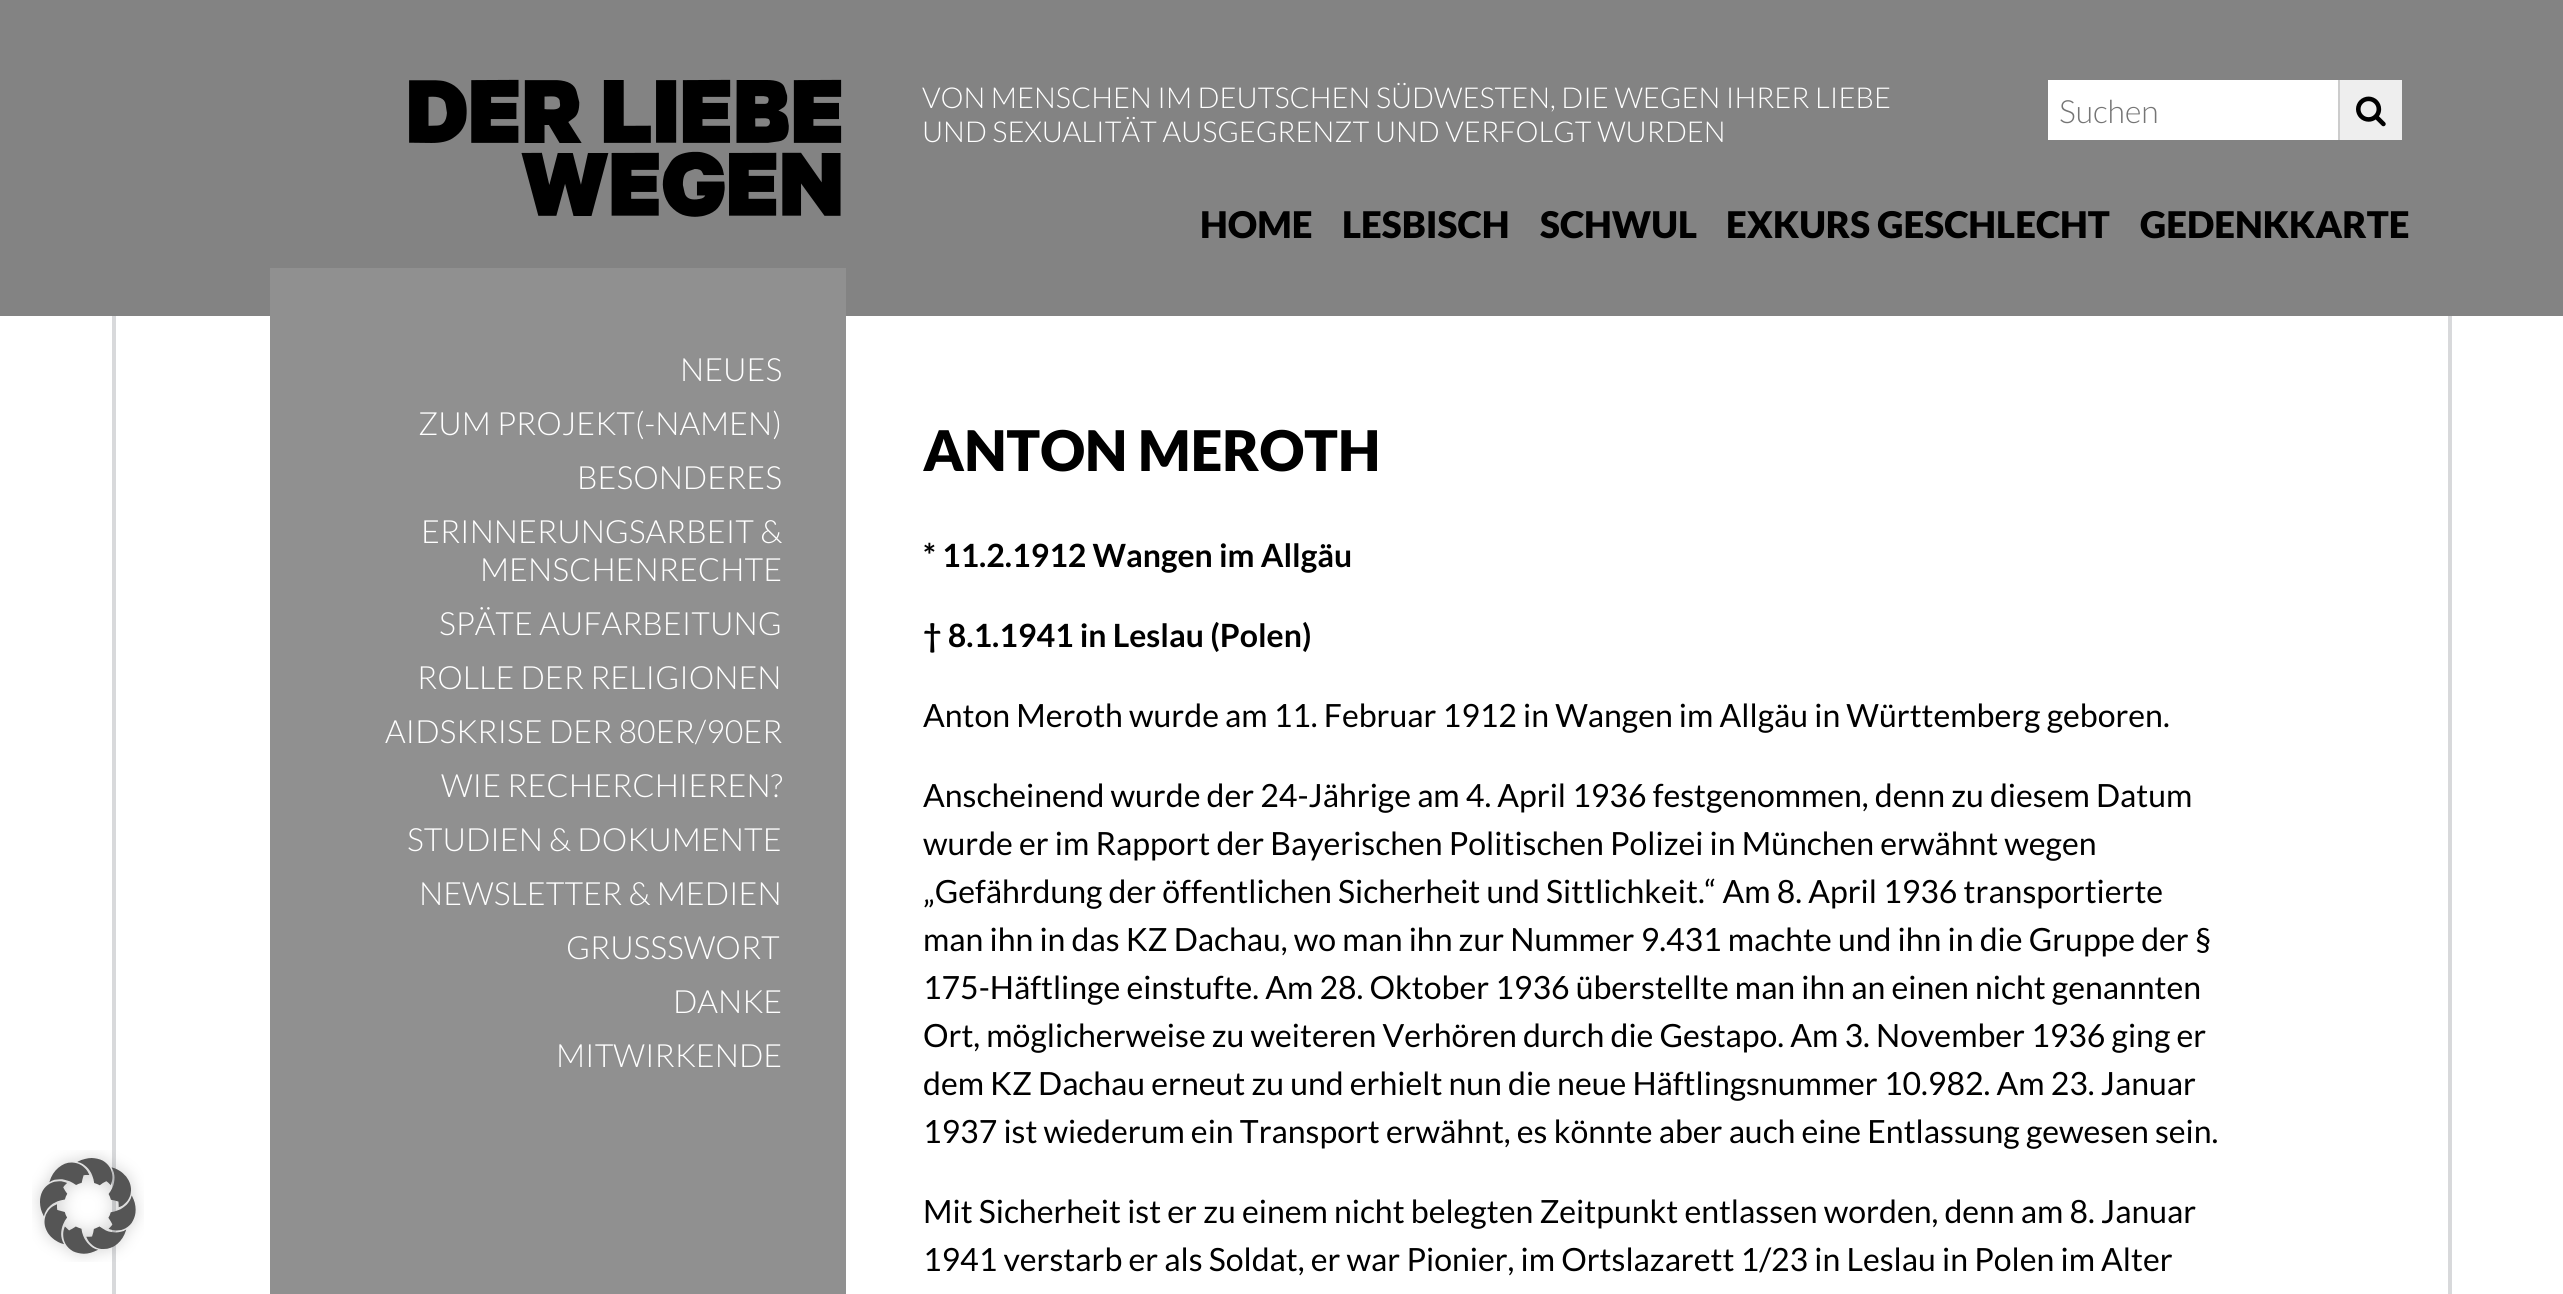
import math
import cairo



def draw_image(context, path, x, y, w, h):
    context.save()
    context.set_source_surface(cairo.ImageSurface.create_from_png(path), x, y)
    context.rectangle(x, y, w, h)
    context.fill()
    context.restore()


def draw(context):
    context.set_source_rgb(1, 1, 1)
    context.paint()
    context.set_source_rgb(131 / 255, 131 / 255, 131 / 255)
    context.rectangle(0, 0, 2563, 316)
    context.fill()
    draw_image(context, "images/1.png", 409, 79, 433, 138)
    context.set_source_rgb(1, 1, 1)
    context.rectangle(2048, 80, 290, 60)
    context.fill()
    context.set_source_rgb(238 / 255, 238 / 255, 238 / 255)
    context.rectangle(2340, 80, 62, 60)
    context.fill()
    context.set_source_rgb(204 / 255, 204 / 255, 204 / 255)
    context.rectangle(2338, 80, 2, 60)
    context.fill()
    draw_image(context, "images/2.png", 2356, 96, 30, 31)
    context.set_source_rgb(216 / 255, 217 / 255, 219 / 255)
    context.rectangle(112, 316, 4, 978)
    context.fill()
    draw_image(context, "images/3.png", 32, 1150, 112, 112)
    context.set_source_rgb(144 / 255, 144 / 255, 144 / 255)
    context.new_path()
    context.move_to(270, 268)
    context.line_to(846, 268)
    context.line_to(846, 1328)
    context.line_to(270, 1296)
    context.close_path()
    context.fill()
    context.set_source_rgb(216 / 255, 217 / 255, 219 / 255)
    context.rectangle(2448, 316, 4, 978)
    context.fill()
    context.select_font_face("Lato Light")
    context.set_font_size(28.8)
    context.set_source_rgb(1, 1, 1)
    context.move_to(922, 108)
    context.show_text("VON MENSCHEN IM DEUTSCHEN SÜDWESTEN, DIE WEGEN IHRER LIEBE")
    context.move_to(922, 142)
    context.show_text("UND SEXUALITÄT AUSGEGRENZT UND VERFOLGT WURDEN")
    context.set_font_size(32)
    context.set_source_rgb(117 / 255, 117 / 255, 117 / 255)
    context.move_to(2059, 123)
    context.show_text("Suchen")
    context.select_font_face("Lato Black")
    context.set_font_size(36.75)
    context.set_source_rgb(0, 0, 0)
    context.move_to(1200, 238)
    context.show_text("HOME")
    context.move_to(1342, 238)
    context.show_text("LESBISCH")
    context.move_to(1540, 238)
    context.show_text("SCHWUL")
    context.move_to(1726, 238)
    context.show_text("EXKURS GESCHLECHT")
    context.move_to(2140, 238)
    context.show_text("GEDENKKARTE")
    context.select_font_face("Lato Light")
    context.set_font_size(32)
    context.set_source_rgb(1, 1, 1)
    context.move_to(680, 381)
    context.show_text("NEUES")
    context.move_to(418, 435)
    context.show_text("ZUM PROJEKT(-NAMEN)")
    context.move_to(577, 489)
    context.show_text("BESONDERES")
    context.move_to(421, 543)
    context.show_text("ERINNERUNGSARBEIT &")
    context.move_to(480, 581)
    context.show_text("MENSCHENRECHTE")
    context.move_to(439, 635)
    context.show_text("SPÄTE AUFARBEITUNG")
    context.move_to(417, 689)
    context.show_text("ROLLE DER RELIGIONEN")
    context.move_to(385, 743)
    context.show_text("AIDSKRISE DER 80ER/90ER")
    context.move_to(441, 797)
    context.show_text("WIE RECHERCHIEREN?")
    context.move_to(407, 851)
    context.show_text("STUDIEN & DOKUMENTE")
    context.move_to(419, 905)
    context.show_text("NEWSLETTER & MEDIEN")
    context.move_to(566, 959)
    context.show_text("GRUSSSWORT")
    context.move_to(673, 1013)
    context.show_text("DANKE")
    context.move_to(556, 1067)
    context.show_text("MITWIRKENDE")
    context.select_font_face("Lato Black")
    context.set_font_size(56)
    context.set_source_rgb(0, 0, 0)
    context.move_to(923, 471)
    context.show_text("ANTON MEROTH")
    context.select_font_face("Lato", cairo.FontSlant.NORMAL, cairo.FontWeight.BOLD)
    context.set_font_size(32)
    context.move_to(923, 567)
    context.show_text("* 11.2.1912 Wangen im Allgäu")
    context.move_to(923, 647)
    context.show_text("† 8.1.1941 in Leslau (Polen)")
    context.select_font_face("Lato")
    context.move_to(923, 727)
    context.show_text("Anton Meroth wurde am 11. Februar 1912 in Wangen im Allgäu in Württemberg geboren.")
    context.move_to(923, 807)
    context.show_text("Anscheinend wurde der 24-Jährige am 4. April 1936 festgenommen, denn zu diesem Datum")
    context.move_to(923, 855)
    context.show_text("wurde er im Rapport der Bayerischen Politischen Polizei in München erwähnt wegen")
    context.move_to(923, 903)
    context.show_text("„Gefährdung der öffentlichen Sicherheit und Sittlichkeit.“ Am 8. April 1936 transportierte")
    context.move_to(923, 951)
    context.show_text("man ihn in das KZ Dachau, wo man ihn zur Nummer 9.431 machte und ihn in die Gruppe der §")
    context.move_to(923, 999)
    context.show_text("175-Häftlinge einstufte. Am 28. Oktober 1936 überstellte man ihn an einen nicht genannten")
    context.move_to(923, 1047)
    context.show_text("Ort, möglicherweise zu weiteren Verhören durch die Gestapo. Am 3. November 1936 ging er")
    context.move_to(923, 1095)
    context.show_text("dem KZ Dachau erneut zu und erhielt nun die neue Häftlingsnummer 10.982. Am 23. Januar")
    context.move_to(923, 1143)
    context.show_text("1937 ist wiederum ein Transport erwähnt, es könnte aber auch eine Entlassung gewesen sein.")
    context.move_to(923, 1223)
    context.show_text("Mit Sicherheit ist er zu einem nicht belegten Zeitpunkt entlassen worden, denn am 8. Januar")
    context.move_to(923, 1271)
    context.show_text("1941 verstarb er als Soldat, er war Pionier, im Ortslazarett 1/23 in Leslau in Polen im Alter")


surface = cairo.ImageSurface(cairo.Format.RGB24, 2563, 1294)
context = cairo.Context(surface)
options = cairo.FontOptions()
options.set_hint_metrics(cairo.HintMetrics.OFF)
options.set_hint_style(cairo.HintStyle.NONE)
context.set_font_options(options)
context.set_miter_limit(4)
draw(context)
surface.write_to_png("out.png")
